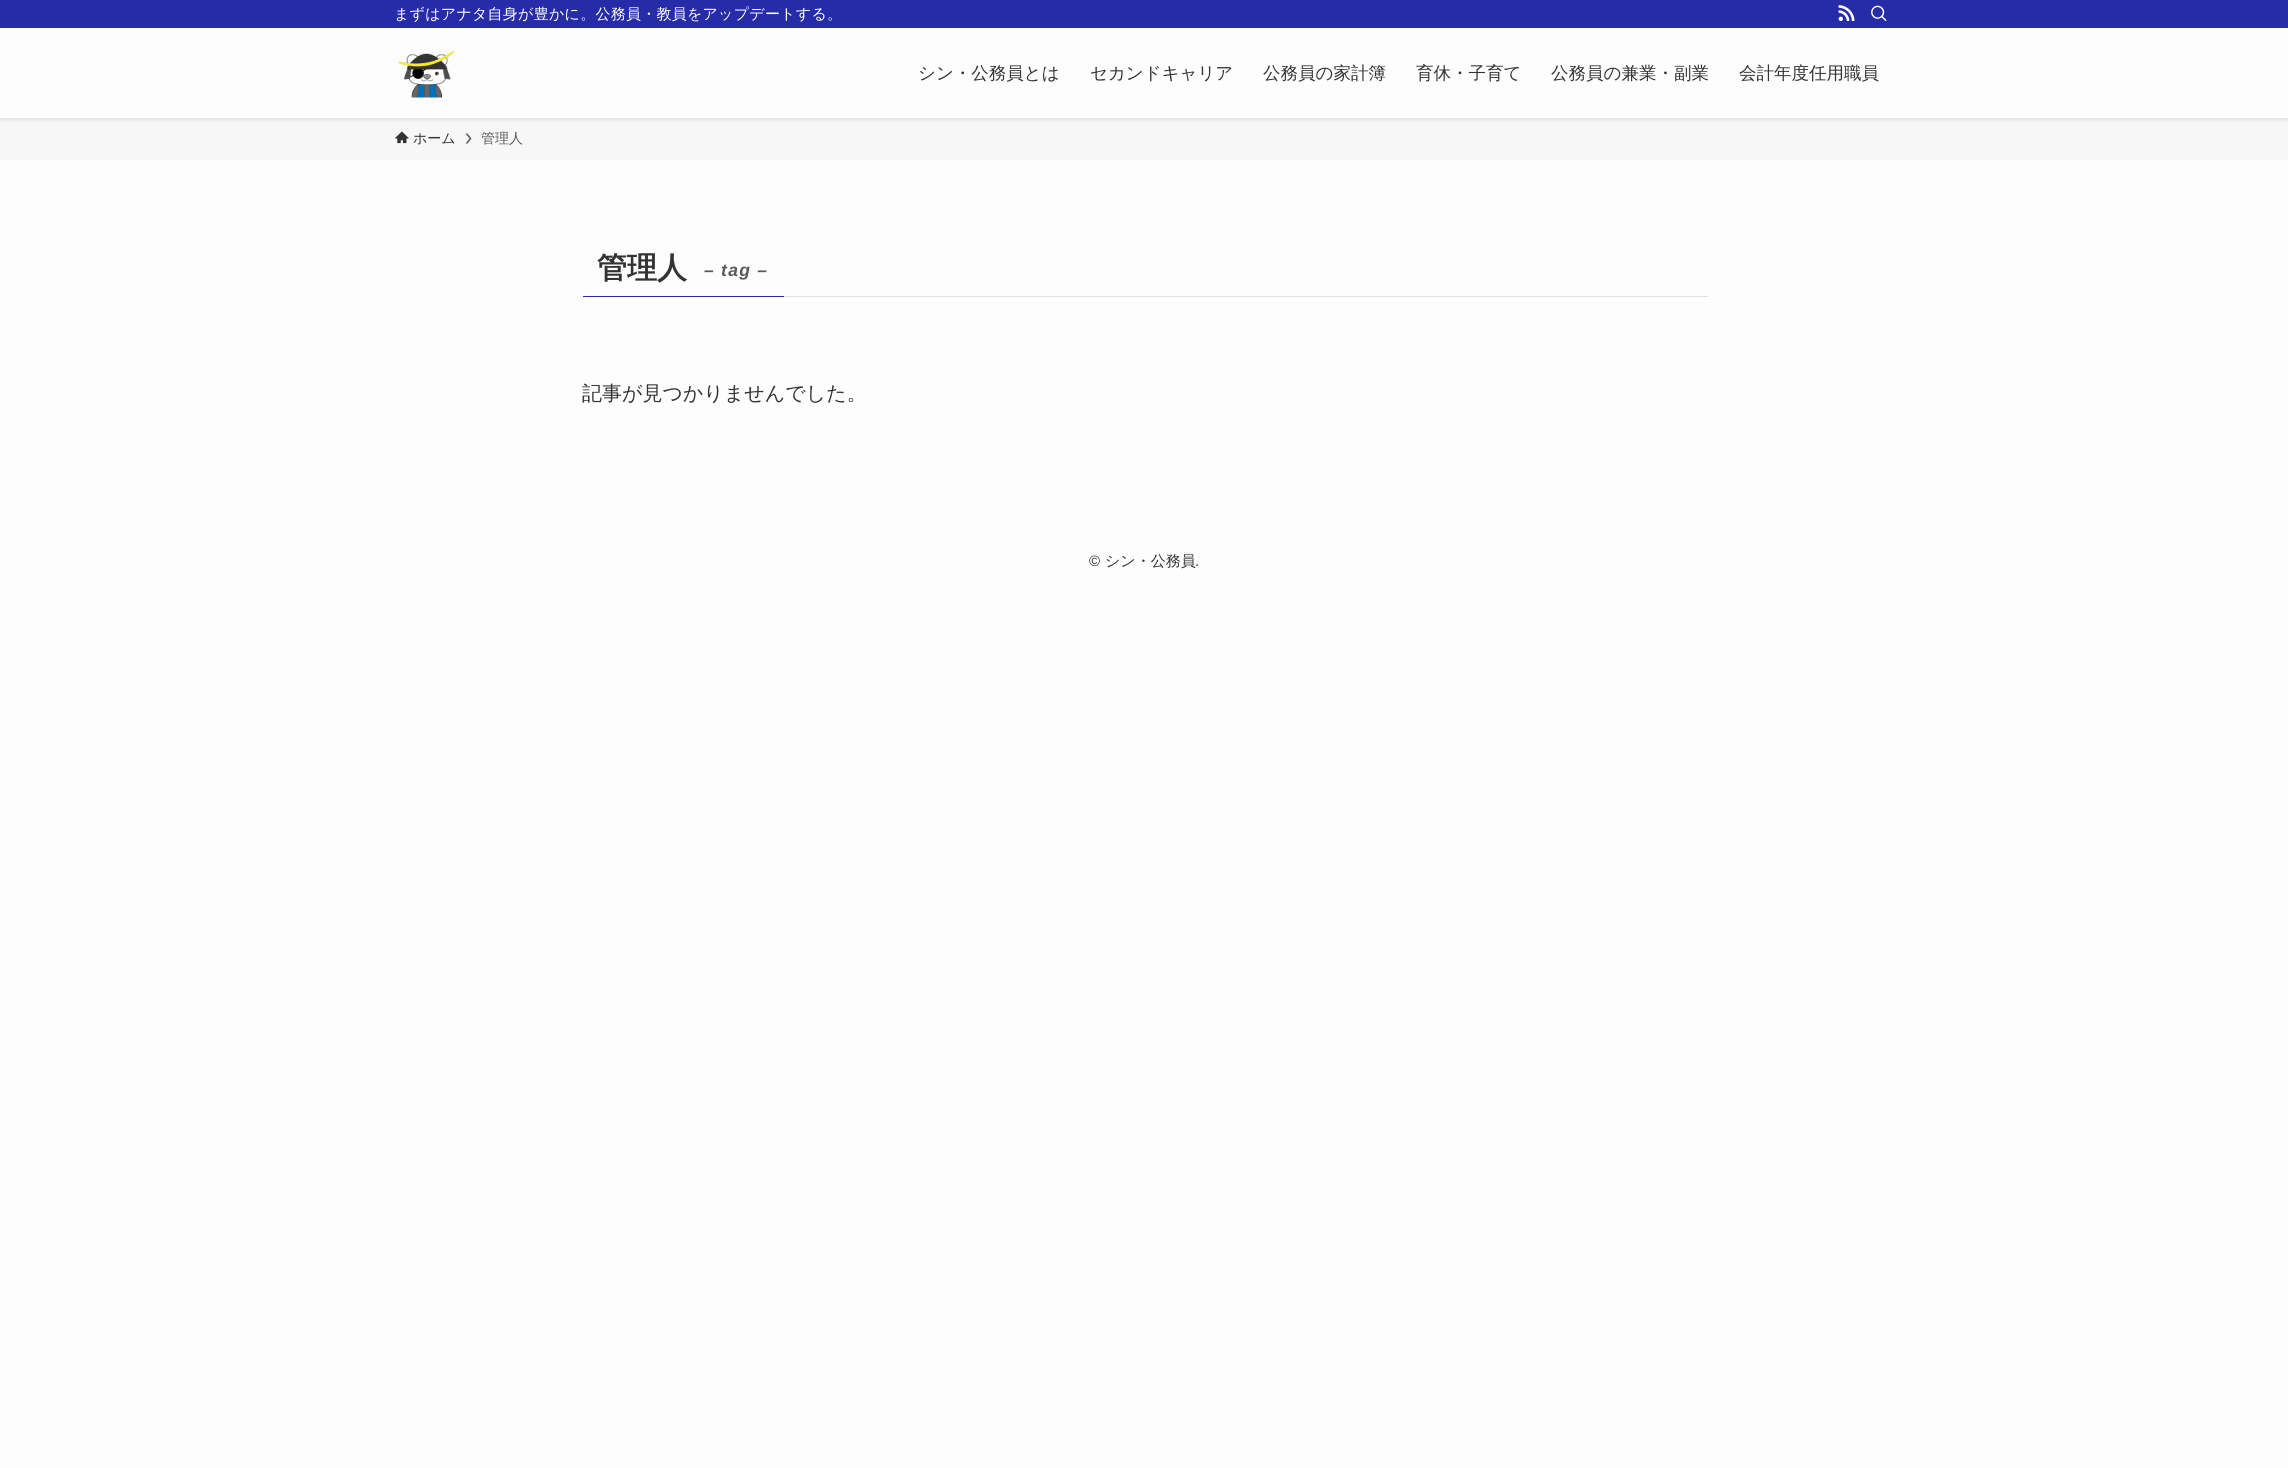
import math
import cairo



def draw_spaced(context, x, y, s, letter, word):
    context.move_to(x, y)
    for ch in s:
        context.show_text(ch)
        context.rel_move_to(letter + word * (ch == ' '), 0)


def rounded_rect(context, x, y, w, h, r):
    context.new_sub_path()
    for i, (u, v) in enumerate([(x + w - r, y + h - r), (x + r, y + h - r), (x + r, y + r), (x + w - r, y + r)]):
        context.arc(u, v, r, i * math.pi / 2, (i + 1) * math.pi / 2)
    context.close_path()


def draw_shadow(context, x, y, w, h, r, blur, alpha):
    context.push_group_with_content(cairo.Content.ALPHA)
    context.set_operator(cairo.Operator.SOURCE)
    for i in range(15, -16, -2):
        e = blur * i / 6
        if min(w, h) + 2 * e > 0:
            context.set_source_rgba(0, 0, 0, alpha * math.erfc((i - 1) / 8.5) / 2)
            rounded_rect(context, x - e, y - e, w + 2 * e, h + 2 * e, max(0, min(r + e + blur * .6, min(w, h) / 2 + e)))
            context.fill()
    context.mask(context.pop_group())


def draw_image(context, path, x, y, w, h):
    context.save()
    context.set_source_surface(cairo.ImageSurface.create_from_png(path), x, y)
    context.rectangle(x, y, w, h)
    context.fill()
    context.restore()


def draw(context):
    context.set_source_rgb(253 / 255, 253 / 255, 253 / 255)
    context.paint()
    context.set_source_rgb(247 / 255, 247 / 255, 247 / 255)
    context.rectangle(0, 118, 2288, 42)
    context.fill()
    context.set_source_rgb(0, 0, 0)
    draw_shadow(context, 0, 1, 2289, 118, 0, 2.5, 0.12)
    context.set_source_rgb(253 / 255, 253 / 255, 253 / 255)
    context.rectangle(0, 28, 2288, 90)
    context.fill()
    context.set_source_rgb(38 / 255, 43 / 255, 168 / 255)
    context.rectangle(0, 0, 2288, 28)
    context.fill()
    draw_image(context, "images/1.png", 1838, 5, 17, 16)
    draw_image(context, "images/2.png", 1871, 5, 16, 16)
    draw_image(context, "images/3.png", 398, 50, 57, 48)
    draw_image(context, "images/4.png", 395, 131, 14, 13)
    context.set_source_rgb(90 / 255, 90 / 255, 90 / 255)
    context.new_path()
    context.move_to(467.5, 133.5)
    context.line_to(465.5, 133.5)
    context.line_to(469.5, 138.5)
    context.line_to(465.5, 143.5)
    context.line_to(467.5, 143.5)
    context.line_to(471.5, 138.5)
    context.close_path()
    context.fill()
    context.set_source_rgb(226 / 255, 226 / 255, 226 / 255)
    context.rectangle(784, 296, 924, 1)
    context.fill()
    context.set_source_rgb(38 / 255, 43 / 255, 168 / 255)
    context.rectangle(583, 296, 201, 1)
    context.fill()
    context.select_font_face("WenQuanYi Zen Hei Medium")
    context.set_font_size(15)
    context.set_source_rgb(1, 1, 1)
    draw_spaced(context, 394, 19, "まずはアナタ自身が豊かに。公務員・教員をアップデートする。", 0.25, 0)
    context.set_font_size(17.5)
    context.set_source_rgb(51 / 255, 51 / 255, 51 / 255)
    context.move_to(918, 79)
    context.show_text("シン・公務員とは")
    context.move_to(1090, 79)
    context.show_text("セカンドキャリア")
    context.move_to(1263, 79)
    context.show_text("公務員の家計簿")
    context.move_to(1416, 79)
    context.show_text("育休・子育て")
    context.move_to(1551, 79)
    context.show_text("公務員の兼業・副業")
    context.move_to(1739, 79)
    context.show_text("会計年度任用職員")
    context.set_font_size(14)
    context.move_to(413, 143)
    context.show_text("ホーム")
    context.set_source_rgb(90 / 255, 90 / 255, 90 / 255)
    context.move_to(481, 143)
    context.show_text("管理人")
    context.select_font_face("WenQuanYi Zen Hei", cairo.FontSlant.NORMAL, cairo.FontWeight.BOLD)
    context.set_font_size(30)
    context.set_source_rgb(51 / 255, 51 / 255, 51 / 255)
    context.move_to(597, 278)
    context.show_text("管理人")
    context.select_font_face("Liberation Sans", cairo.FontSlant.ITALIC, cairo.FontWeight.BOLD)
    context.set_font_size(17.5)
    context.set_source_rgb(90 / 255, 90 / 255, 90 / 255)
    draw_spaced(context, 704, 276, "– tag –", 1.25, 0)
    context.select_font_face("WenQuanYi Zen Hei Medium")
    context.set_font_size(20)
    context.set_source_rgb(51 / 255, 51 / 255, 51 / 255)
    context.move_to(582, 400)
    context.show_text("記事が見つかりませんでした。")
    context.select_font_face("Liberation Sans")
    context.set_font_size(15)
    context.move_to(1089, 566)
    context.show_text("©")
    context.select_font_face("WenQuanYi Zen Hei Medium")
    context.move_to(1105, 566)
    context.show_text("シン・公務員")
    context.select_font_face("Liberation Sans")
    context.move_to(1195, 566)
    context.show_text(".")


surface = cairo.ImageSurface(cairo.Format.RGB24, 2288, 1468)
context = cairo.Context(surface)
options = cairo.FontOptions()
options.set_hint_metrics(cairo.HintMetrics.OFF)
options.set_hint_style(cairo.HintStyle.NONE)
context.set_font_options(options)
context.set_miter_limit(4)
draw(context)
surface.write_to_png("out.png")
